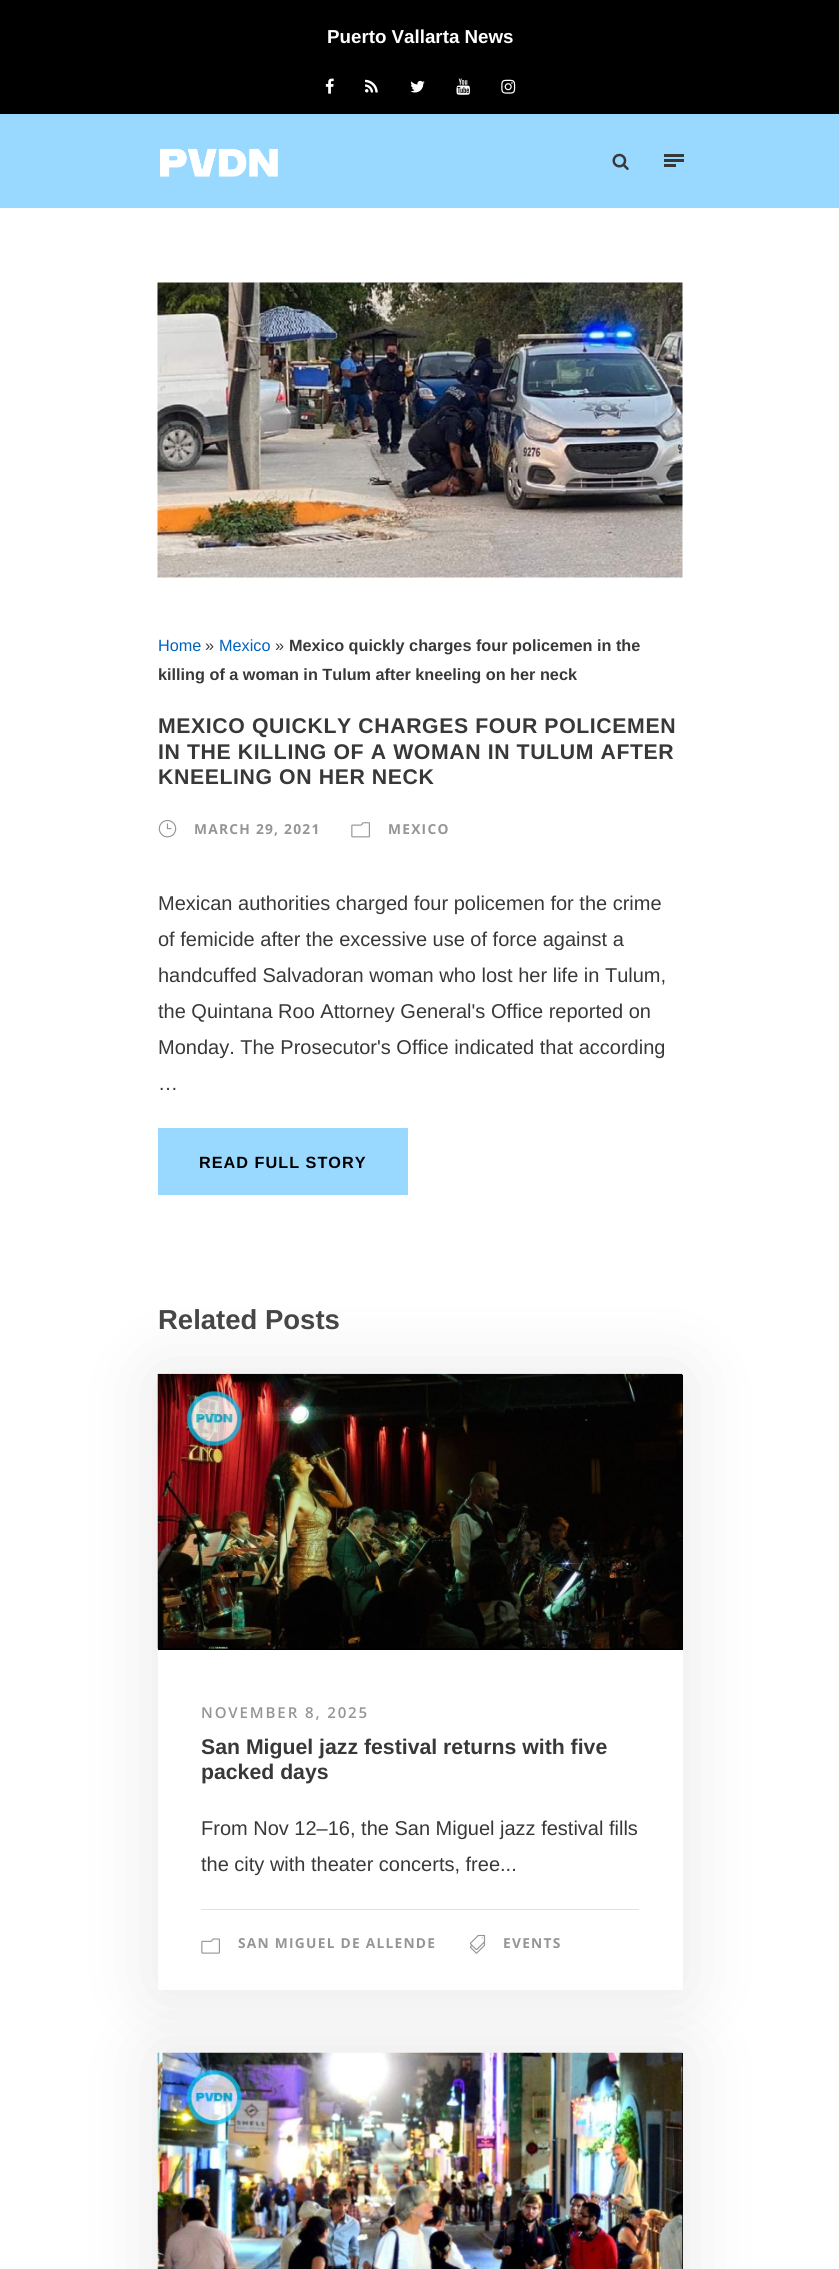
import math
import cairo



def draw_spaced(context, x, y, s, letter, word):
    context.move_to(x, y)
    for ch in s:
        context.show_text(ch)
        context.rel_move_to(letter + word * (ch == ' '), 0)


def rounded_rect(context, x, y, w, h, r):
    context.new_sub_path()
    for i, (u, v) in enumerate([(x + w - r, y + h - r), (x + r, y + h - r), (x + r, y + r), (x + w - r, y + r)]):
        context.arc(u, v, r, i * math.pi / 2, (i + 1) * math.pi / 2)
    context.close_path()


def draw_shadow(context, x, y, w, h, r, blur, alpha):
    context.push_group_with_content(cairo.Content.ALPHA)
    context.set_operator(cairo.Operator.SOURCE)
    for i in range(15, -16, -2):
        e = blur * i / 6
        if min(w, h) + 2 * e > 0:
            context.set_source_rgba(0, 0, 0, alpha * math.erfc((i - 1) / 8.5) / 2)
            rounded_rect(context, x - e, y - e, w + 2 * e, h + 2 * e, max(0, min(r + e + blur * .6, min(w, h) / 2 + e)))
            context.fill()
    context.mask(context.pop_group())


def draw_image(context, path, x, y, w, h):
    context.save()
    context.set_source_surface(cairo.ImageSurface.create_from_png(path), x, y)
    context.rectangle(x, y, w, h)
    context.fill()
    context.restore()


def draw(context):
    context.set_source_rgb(1, 1, 1)
    context.paint()
    context.set_source_rgb(0, 0, 0)
    context.rectangle(0, 0, 839, 114)
    context.fill()
    draw_image(context, "images/1.png", 325, 78, 9, 16)
    draw_image(context, "images/2.png", 365, 79, 13, 14)
    draw_image(context, "images/3.png", 410, 80, 15, 13)
    draw_image(context, "images/4.png", 456, 78, 14, 17)
    draw_image(context, "images/5.png", 501, 79, 15, 15)
    context.set_source_rgb(153 / 255, 217 / 255, 1)
    context.rectangle(0, 114, 839, 94)
    context.fill()
    draw_image(context, "images/6.png", 160, 148, 118, 29)
    draw_image(context, "images/7.png", 612, 153, 17, 17)
    context.set_source_rgb(56 / 255, 56 / 255, 56 / 255)
    context.rectangle(664, 154, 20, 3)
    context.fill()
    context.rectangle(664, 159, 20, 3)
    context.fill()
    context.rectangle(664, 164, 12, 3)
    context.fill()
    draw_image(context, "images/8.png", 157, 282, 526, 296)
    draw_image(context, "images/9.png", 158, 819, 19, 19)
    draw_image(context, "images/10.png", 351, 822, 19, 16)
    context.set_source_rgb(153 / 255, 217 / 255, 1)
    context.rectangle(158, 1128, 250, 67)
    context.fill()
    context.set_source_rgb(0, 0, 0)
    draw_shadow(context, 158, 1375, 525, 615, 0, 37.5, 0.1)
    context.set_source_rgb(1, 1, 1)
    context.rectangle(158, 1650, 525, 340)
    context.fill()
    context.set_source_rgb(0, 0, 0)
    context.rectangle(158, 1375, 525, 275)
    context.fill()
    draw_image(context, "images/11.png", 157, 1373, 526, 276)
    context.set_source_rgb(226 / 255, 226 / 255, 226 / 255)
    context.rectangle(201, 1909, 438, 1)
    context.fill()
    draw_image(context, "images/12.png", 201, 1938, 19, 16)
    draw_image(context, "images/13.png", 469, 1934, 17, 20)
    context.set_source_rgb(0, 0, 0)
    draw_shadow(context, 158, 2053, 525, 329, 0, 37.5, 0.1)
    context.set_source_rgb(0, 0, 0)
    context.rectangle(682, 2053, 1, 216)
    context.fill()
    draw_image(context, "images/14.png", 157, 2052, 526, 217)
    context.select_font_face("Liberation Sans", cairo.FontSlant.NORMAL, cairo.FontWeight.BOLD)
    context.set_font_size(18.75)
    context.set_source_rgb(1, 1, 1)
    context.move_to(327, 43)
    context.show_text("Puerto Vallarta News")
    context.select_font_face("Liberation Sans")
    context.set_font_size(16.25)
    context.set_source_rgb(0, 98 / 255, 191 / 255)
    context.move_to(158, 651)
    context.show_text("Home")
    context.set_source_rgb(56 / 255, 56 / 255, 56 / 255)
    context.move_to(205, 651)
    context.show_text("»")
    context.set_source_rgb(0, 98 / 255, 191 / 255)
    context.move_to(219, 651)
    context.show_text("Mexico")
    context.set_source_rgb(56 / 255, 56 / 255, 56 / 255)
    context.move_to(275, 651)
    context.show_text("»")
    context.select_font_face("Liberation Sans", cairo.FontSlant.NORMAL, cairo.FontWeight.BOLD)
    context.move_to(289, 651)
    context.show_text("Mexico quickly charges four policemen in the")
    context.move_to(158, 680)
    context.show_text("killing of a woman in Tulum after kneeling on her neck")
    context.set_font_size(21.25)
    draw_spaced(context, 158, 733, "MEXICO QUICKLY CHARGES FOUR POLICEMEN", 0.6, 0)
    draw_spaced(context, 158, 759, "IN THE KILLING OF A WOMAN IN TULUM AFTER", 0.6, 0)
    draw_spaced(context, 158, 784, "KNEELING ON HER NECK", 0.6, 0)
    context.select_font_face("Open Sans", cairo.FontSlant.NORMAL, cairo.FontWeight.BOLD)
    context.set_font_size(13.75)
    context.set_source_rgb(149 / 255, 149 / 255, 149 / 255)
    draw_spaced(context, 194, 834, "MARCH 29, 2021", 1.25, 0)
    draw_spaced(context, 388, 834, "MEXICO", 1.25, 0)
    context.select_font_face("Liberation Sans")
    context.set_font_size(20)
    context.set_source_rgb(56 / 255, 56 / 255, 56 / 255)
    context.move_to(158, 910)
    context.show_text("Mexican authorities charged four policemen for the crime")
    context.move_to(158, 946)
    context.show_text("of femicide after the excessive use of force against a")
    context.move_to(158, 982)
    context.show_text("handcuffed Salvadoran woman who lost her life in Tulum,")
    context.move_to(158, 1018)
    context.show_text("the Quintana Roo Attorney General's Office reported on")
    context.move_to(158, 1054)
    context.show_text("Monday. The Prosecutor's Office indicated that according")
    context.move_to(158, 1090)
    context.show_text("…")
    context.select_font_face("Liberation Sans", cairo.FontSlant.NORMAL, cairo.FontWeight.BOLD)
    context.set_font_size(16.25)
    context.set_source_rgb(0, 0, 0)
    draw_spaced(context, 199, 1168, "READ FULL STORY", 1, 0)
    context.set_font_size(27.5)
    context.set_source_rgb(70 / 255, 70 / 255, 70 / 255)
    context.move_to(158, 1329)
    context.show_text("Related Posts")
    context.select_font_face("Open Sans SemiBold")
    context.set_font_size(15)
    context.set_source_rgb(149 / 255, 149 / 255, 149 / 255)
    draw_spaced(context, 201, 1718, "NOVEMBER 8, 2025", 1.9, 0)
    context.select_font_face("Liberation Sans", cairo.FontSlant.NORMAL, cairo.FontWeight.BOLD)
    context.set_font_size(21.25)
    context.set_source_rgb(56 / 255, 56 / 255, 56 / 255)
    context.move_to(201, 1754)
    context.show_text("San Miguel jazz festival returns with five")
    context.move_to(201, 1779)
    context.show_text("packed days")
    context.select_font_face("Liberation Sans")
    context.set_font_size(20)
    context.move_to(201, 1835)
    context.show_text("From Nov 12–16, the San Miguel jazz festival fills")
    context.move_to(201, 1871)
    context.show_text("the city with theater concerts, free...")
    context.select_font_face("Open Sans", cairo.FontSlant.NORMAL, cairo.FontWeight.BOLD)
    context.set_font_size(13.75)
    context.set_source_rgb(149 / 255, 149 / 255, 149 / 255)
    draw_spaced(context, 238, 1948, "SAN MIGUEL DE ALLENDE", 1.25, 0)
    draw_spaced(context, 503, 1948, "EVENTS", 1.25, 0)


surface = cairo.ImageSurface(cairo.Format.RGB24, 839, 2269)
context = cairo.Context(surface)
options = cairo.FontOptions()
options.set_hint_metrics(cairo.HintMetrics.OFF)
options.set_hint_style(cairo.HintStyle.NONE)
context.set_font_options(options)
context.set_miter_limit(4)
draw(context)
surface.write_to_png("out.png")
